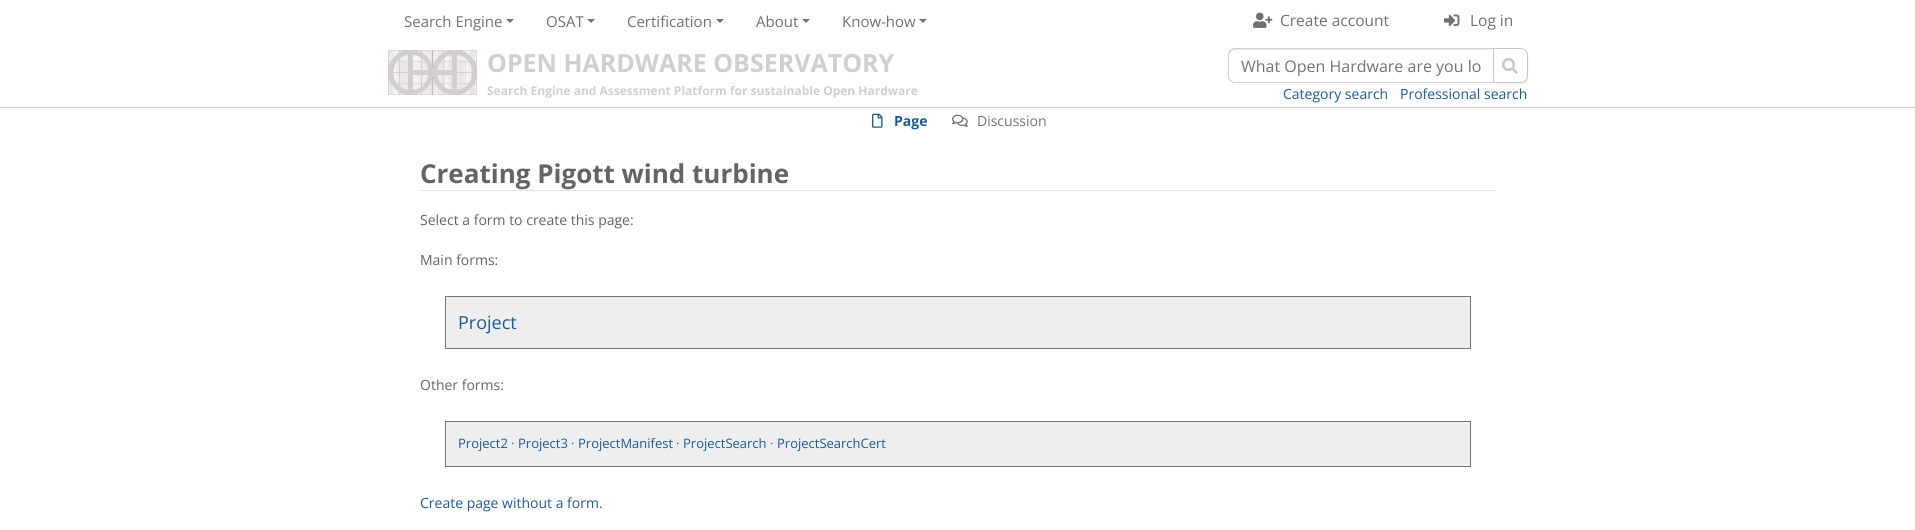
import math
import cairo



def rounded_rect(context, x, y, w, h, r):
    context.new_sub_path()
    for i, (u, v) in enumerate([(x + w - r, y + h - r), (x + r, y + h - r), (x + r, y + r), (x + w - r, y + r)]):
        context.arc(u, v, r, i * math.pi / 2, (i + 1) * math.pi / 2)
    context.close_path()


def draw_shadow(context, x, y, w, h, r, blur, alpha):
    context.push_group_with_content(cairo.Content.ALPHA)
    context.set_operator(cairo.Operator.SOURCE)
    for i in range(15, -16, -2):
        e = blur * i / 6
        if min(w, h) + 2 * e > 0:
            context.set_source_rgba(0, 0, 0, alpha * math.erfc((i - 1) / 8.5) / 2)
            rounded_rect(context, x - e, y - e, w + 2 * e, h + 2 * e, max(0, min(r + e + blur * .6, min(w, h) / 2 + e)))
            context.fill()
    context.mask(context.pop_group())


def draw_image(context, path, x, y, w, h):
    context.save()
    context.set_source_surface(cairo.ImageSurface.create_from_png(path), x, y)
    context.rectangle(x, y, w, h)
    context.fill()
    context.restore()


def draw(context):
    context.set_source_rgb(1, 1, 1)
    context.paint()
    context.set_source_rgb(112 / 255, 112 / 255, 112 / 255)
    context.new_path()
    context.move_to(506, 19)
    context.line_to(514, 19)
    context.line_to(510, 23)
    context.close_path()
    context.fill()
    context.new_path()
    context.move_to(587, 19)
    context.line_to(595, 19)
    context.line_to(591, 23)
    context.close_path()
    context.fill()
    context.new_path()
    context.move_to(716, 19)
    context.line_to(724, 19)
    context.line_to(720, 23)
    context.close_path()
    context.fill()
    context.new_path()
    context.move_to(802, 19)
    context.line_to(810, 19)
    context.line_to(806, 23)
    context.close_path()
    context.fill()
    context.new_path()
    context.move_to(919, 19)
    context.line_to(927, 19)
    context.line_to(923, 23)
    context.close_path()
    context.fill()
    draw_image(context, "images/1.png", 1253, 12, 20, 16)
    draw_image(context, "images/2.png", 1444, 14, 16, 13)
    context.set_source_rgb(207 / 255, 207 / 255, 207 / 255)
    context.rectangle(0, 107, 1915, 1)
    context.fill()
    draw_image(context, "images/3.png", 388, 50, 89, 45)
    context.set_source_rgb(0, 0, 0)
    draw_shadow(context, 1493, 49, 35, 35, 7, 0.5, 0.07)
    context.set_source_rgb(236 / 255, 236 / 255, 236 / 255)
    context.new_path()
    context.move_to(1235, 50)
    context.line_to(1493, 50)
    context.line_to(1493, 49)
    context.line_to(1235, 49)
    context.curve_to(1231, 49, 1229, 52, 1229, 56)
    context.curve_to(1229, 53, 1232, 50, 1235, 50)
    context.close_path()
    context.fill()
    context.set_source_rgb(207 / 255, 207 / 255, 207 / 255)
    context.set_fill_rule(cairo.FillRule.EVEN_ODD)
    context.new_path()
    context.move_to(1235, 48)
    context.line_to(1493, 48)
    context.line_to(1493, 83)
    context.line_to(1235, 83)
    context.curve_to(1231, 83, 1228, 80, 1228, 76)
    context.line_to(1228, 55)
    context.curve_to(1228, 51, 1231, 48, 1235, 48)
    context.close_path()
    context.move_to(1235, 49)
    context.line_to(1493, 49)
    context.line_to(1493, 82)
    context.line_to(1235, 82)
    context.curve_to(1232, 82, 1229, 79, 1229, 76)
    context.line_to(1229, 55)
    context.curve_to(1229, 52, 1232, 49, 1235, 49)
    context.close_path()
    context.fill()
    context.set_source_rgb(1, 1, 1)
    context.new_path()
    context.move_to(1493.5, 48.5)
    context.line_to(1521, 48.5)
    context.curve_to(1524.5, 48.5, 1527.5, 51.5, 1527.5, 55)
    context.line_to(1527.5, 76)
    context.curve_to(1527.5, 79.5, 1524.5, 82.5, 1521, 82.5)
    context.line_to(1493.5, 82.5)
    context.close_path()
    context.fill_preserve()
    context.set_source_rgb(199 / 255, 199 / 255, 199 / 255)
    context.set_line_width(1)
    context.stroke()
    draw_image(context, "images/4.png", 1502, 58, 16, 16)
    draw_image(context, "images/5.png", 872, 113, 11, 15)
    draw_image(context, "images/6.png", 952, 114, 16, 13)
    context.set_source_rgb(230 / 255, 230 / 255, 230 / 255)
    context.rectangle(420, 190, 1076, 1)
    context.fill()
    context.set_source_rgb(238 / 255, 238 / 255, 238 / 255)
    context.rectangle(445.5, 296.5, 1025, 52)
    context.fill_preserve()
    context.set_source_rgb(119 / 255, 119 / 255, 119 / 255)
    context.stroke()
    context.set_source_rgb(238 / 255, 238 / 255, 238 / 255)
    context.rectangle(445.5, 421.5, 1025, 45)
    context.fill_preserve()
    context.set_source_rgb(119 / 255, 119 / 255, 119 / 255)
    context.stroke()
    context.select_font_face("Open Sans")
    context.set_font_size(15)
    context.set_source_rgb(112 / 255, 112 / 255, 112 / 255)
    context.move_to(404, 27)
    context.show_text("Search Engine")
    context.move_to(546, 27)
    context.show_text("OSAT")
    context.move_to(627, 27)
    context.show_text("Certification")
    context.move_to(756, 27)
    context.show_text("About")
    context.move_to(842, 27)
    context.show_text("Know-how")
    context.set_font_size(15.5)
    context.move_to(1280, 26)
    context.show_text("Create account")
    context.move_to(1470, 26)
    context.show_text("Log in")
    context.select_font_face("Open Sans", cairo.FontSlant.NORMAL, cairo.FontWeight.BOLD)
    context.set_font_size(25)
    context.set_source_rgb(207 / 255, 207 / 255, 207 / 255)
    context.move_to(487, 72)
    context.show_text("OPEN HARDWARE OBSERVATORY")
    context.set_font_size(12)
    context.move_to(487, 95)
    context.show_text("Search Engine and Assessment Platform for sustainable Open Hardware")
    context.select_font_face("Open Sans")
    context.set_font_size(16)
    context.set_source_rgb(108 / 255, 117 / 255, 125 / 255)
    context.move_to(1241, 72)
    context.show_text("What Open Hardware are you lo")
    context.set_font_size(14)
    context.set_source_rgb(27 / 255, 89 / 255, 155 / 255)
    context.move_to(1283, 99)
    context.show_text("Category search")
    context.move_to(1400, 99)
    context.show_text("Professional search")
    context.select_font_face("Open Sans", cairo.FontSlant.NORMAL, cairo.FontWeight.BOLD)
    context.move_to(894, 126)
    context.show_text("Page")
    context.select_font_face("Open Sans")
    context.set_source_rgb(108 / 255, 117 / 255, 125 / 255)
    context.move_to(977, 126)
    context.show_text("Discussion")
    context.select_font_face("Open Sans", cairo.FontSlant.NORMAL, cairo.FontWeight.BOLD)
    context.set_font_size(26)
    context.set_source_rgb(100 / 255, 100 / 255, 100 / 255)
    context.move_to(420, 183)
    context.show_text("Creating Pigott wind turbine")
    context.select_font_face("Open Sans")
    context.set_font_size(14)
    context.move_to(420, 225)
    context.show_text("Select a form to create this page:")
    context.move_to(420, 265)
    context.show_text("Main forms:")
    context.set_font_size(18)
    context.set_source_rgb(27 / 255, 89 / 255, 155 / 255)
    context.move_to(458, 329)
    context.show_text("Project")
    context.set_font_size(14)
    context.set_source_rgb(100 / 255, 100 / 255, 100 / 255)
    context.move_to(420, 390)
    context.show_text("Other forms:")
    context.set_font_size(13)
    context.set_source_rgb(27 / 255, 89 / 255, 155 / 255)
    context.move_to(458, 448)
    context.show_text("Project2")
    context.set_source_rgb(100 / 255, 100 / 255, 100 / 255)
    context.move_to(511, 448)
    context.show_text("·")
    context.set_source_rgb(27 / 255, 89 / 255, 155 / 255)
    context.move_to(518, 448)
    context.show_text("Project3")
    context.set_source_rgb(100 / 255, 100 / 255, 100 / 255)
    context.move_to(571, 448)
    context.show_text("·")
    context.set_source_rgb(27 / 255, 89 / 255, 155 / 255)
    context.move_to(578, 448)
    context.show_text("ProjectManifest")
    context.set_source_rgb(100 / 255, 100 / 255, 100 / 255)
    context.move_to(676, 448)
    context.show_text("·")
    context.set_source_rgb(27 / 255, 89 / 255, 155 / 255)
    context.move_to(683, 448)
    context.show_text("ProjectSearch")
    context.set_source_rgb(100 / 255, 100 / 255, 100 / 255)
    context.move_to(770, 448)
    context.show_text("·")
    context.set_source_rgb(27 / 255, 89 / 255, 155 / 255)
    context.move_to(777, 448)
    context.show_text("ProjectSearchCert")
    context.set_font_size(14)
    context.move_to(420, 508)
    context.show_text("Create page without a form.")


surface = cairo.ImageSurface(cairo.Format.RGB24, 1915, 530)
context = cairo.Context(surface)
options = cairo.FontOptions()
options.set_hint_metrics(cairo.HintMetrics.OFF)
options.set_hint_style(cairo.HintStyle.NONE)
context.set_font_options(options)
context.set_miter_limit(4)
draw(context)
surface.write_to_png("out.png")
